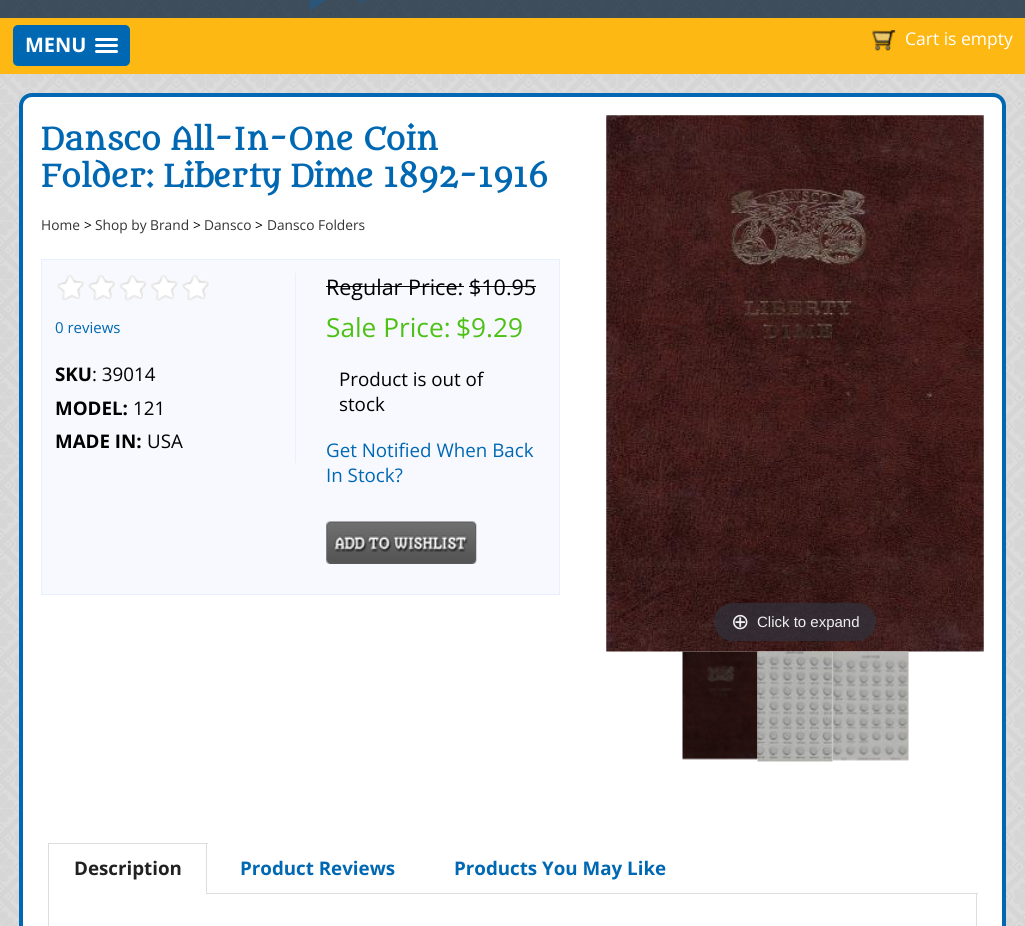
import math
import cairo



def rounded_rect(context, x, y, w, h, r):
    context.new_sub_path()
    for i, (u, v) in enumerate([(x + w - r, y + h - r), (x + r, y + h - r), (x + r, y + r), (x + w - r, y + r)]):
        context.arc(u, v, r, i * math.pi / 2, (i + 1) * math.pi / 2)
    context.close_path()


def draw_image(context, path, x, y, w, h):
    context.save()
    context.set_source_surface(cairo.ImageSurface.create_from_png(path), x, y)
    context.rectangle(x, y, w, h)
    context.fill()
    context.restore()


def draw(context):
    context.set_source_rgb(1, 1, 1)
    context.paint()
    draw_image(context, "images/1.png", 0, 0, 1025, 18)
    draw_image(context, "images/2.png", 308, 0, 58, 12)
    context.set_source_rgb(253 / 255, 184 / 255, 19 / 255)
    context.rectangle(0, 18, 1025, 56)
    context.fill()
    context.set_source_rgb(0, 104 / 255, 179 / 255)
    rounded_rect(context, 13, 25, 117, 41, 5)
    context.fill()
    context.set_source_rgb(1, 1, 1)
    rounded_rect(context, 95, 38, 23, 3, 1.5)
    context.fill()
    rounded_rect(context, 95, 44, 23, 3, 1.5)
    context.fill()
    rounded_rect(context, 95, 50, 23, 3, 1.5)
    context.fill()
    draw_image(context, "images/3.png", 872, 30, 24, 21)
    draw_image(context, "images/4.png", 0, 74, 1025, 852)
    rounded_rect(context, 21, 95, 983, 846, 11)
    context.fill_preserve()
    context.set_source_rgb(0, 104 / 255, 179 / 255)
    context.set_line_width(4)
    context.stroke()
    context.set_source_rgb(247 / 255, 249 / 255, 1)
    context.rectangle(41.5, 259.5, 518, 335)
    context.fill_preserve()
    context.set_source_rgb(232 / 255, 239 / 255, 254 / 255)
    context.set_line_width(1)
    context.stroke()
    context.rectangle(295, 273, 1, 190)
    context.fill()
    draw_image(context, "images/5.png", 57, 274, 153, 27)
    context.set_source_rgb(0, 0, 0)
    context.rectangle(326, 286, 138, 1)
    context.fill()
    context.rectangle(469, 286, 67, 1)
    context.fill()
    draw_image(context, "images/6.png", 326, 521, 151, 43)
    draw_image(context, "images/7.png", 606, 115, 378, 537)
    context.set_source_rgba(49 / 255, 51 / 255, 61 / 255, 0.7)
    rounded_rect(context, 714, 603, 162, 38, 19)
    context.fill()
    draw_image(context, "images/8.png", 682, 651, 76, 109)
    draw_image(context, "images/9.png", 757, 651, 76, 111)
    draw_image(context, "images/10.png", 832, 651, 77, 110)
    context.set_source_rgb(221 / 255, 221 / 255, 221 / 255)
    context.rectangle(207, 893, 771, 1)
    context.fill()
    context.rectangle(48, 843, 160, 1)
    context.fill()
    context.rectangle(206, 843, 1, 51)
    context.fill()
    context.rectangle(48, 843, 1, 51)
    context.fill()
    context.rectangle(976, 894, 1, 32)
    context.fill()
    context.rectangle(48, 894, 1, 32)
    context.fill()
    context.select_font_face("Open Sans", cairo.FontSlant.NORMAL, cairo.FontWeight.BOLD)
    context.set_font_size(20)
    context.set_source_rgb(1, 1, 1)
    context.move_to(25, 52)
    context.show_text("MENU")
    context.select_font_face("Open Sans")
    context.set_font_size(17.5)
    context.move_to(905, 45)
    context.show_text("Cart is empty")
    context.select_font_face("Metamorphous", cairo.FontSlant.NORMAL, cairo.FontWeight.BOLD)
    context.set_font_size(30)
    context.set_source_rgb(0, 104 / 255, 179 / 255)
    context.move_to(41, 150)
    context.show_text("Dansco All-In-One Coin")
    context.move_to(41, 187)
    context.show_text("Folder: Liberty Dime 1892-1916")
    context.select_font_face("Open Sans")
    context.set_font_size(13.75)
    context.set_source_rgb(51 / 255, 51 / 255, 51 / 255)
    context.move_to(41, 230)
    context.show_text("Home")
    context.set_source_rgb(0, 0, 0)
    context.move_to(84, 230)
    context.show_text(">")
    context.set_source_rgb(51 / 255, 51 / 255, 51 / 255)
    context.move_to(95, 230)
    context.show_text("Shop by Brand")
    context.set_source_rgb(0, 0, 0)
    context.move_to(193, 230)
    context.show_text(">")
    context.set_source_rgb(51 / 255, 51 / 255, 51 / 255)
    context.move_to(204, 230)
    context.show_text("Dansco")
    context.set_source_rgb(0, 0, 0)
    context.move_to(255, 230)
    context.show_text(">")
    context.set_source_rgb(51 / 255, 51 / 255, 51 / 255)
    context.move_to(267, 230)
    context.show_text("Dansco Folders")
    context.set_font_size(15)
    context.set_source_rgb(0, 104 / 255, 179 / 255)
    context.move_to(55, 333)
    context.show_text("0 reviews")
    context.select_font_face("Open Sans", cairo.FontSlant.NORMAL, cairo.FontWeight.BOLD)
    context.set_font_size(18.75)
    context.set_source_rgb(0, 0, 0)
    context.move_to(55, 381)
    context.show_text("SKU")
    context.select_font_face("Open Sans")
    context.move_to(92, 381)
    context.show_text(": 39014")
    context.select_font_face("Open Sans", cairo.FontSlant.NORMAL, cairo.FontWeight.BOLD)
    context.move_to(55, 415)
    context.show_text("MODEL:")
    context.select_font_face("Open Sans")
    context.move_to(133, 415)
    context.show_text("121")
    context.select_font_face("Open Sans", cairo.FontSlant.NORMAL, cairo.FontWeight.BOLD)
    context.move_to(55, 448)
    context.show_text("MADE IN:")
    context.select_font_face("Open Sans")
    context.move_to(147, 448)
    context.show_text("USA")
    context.set_font_size(21.5)
    context.move_to(326, 295)
    context.show_text("Regular Price:")
    context.move_to(469, 295)
    context.show_text("$10.95")
    context.set_font_size(26.25)
    context.set_source_rgb(78 / 255, 193 / 255, 21 / 255)
    context.move_to(326, 337)
    context.show_text("Sale Price:")
    context.move_to(456, 337)
    context.show_text("$9.29")
    context.set_font_size(18.75)
    context.set_source_rgb(0, 0, 0)
    context.move_to(339, 386)
    context.show_text("Product is out of")
    context.move_to(339, 411)
    context.show_text("stock")
    context.set_source_rgb(0, 104 / 255, 179 / 255)
    context.move_to(326, 457)
    context.show_text("Get Notified When Back")
    context.move_to(326, 482)
    context.show_text("In Stock?")
    context.select_font_face("DejaVu Sans")
    context.set_font_size(22)
    context.set_source_rgb(238 / 255, 238 / 255, 238 / 255)
    context.move_to(731, 629)
    context.show_text("⊕")
    context.select_font_face("Liberation Sans")
    context.set_font_size(15)
    context.move_to(757, 627)
    context.show_text("Click to expand")
    context.select_font_face("Open Sans", cairo.FontSlant.NORMAL, cairo.FontWeight.BOLD)
    context.set_font_size(18.75)
    context.set_source_rgb(33 / 255, 33 / 255, 33 / 255)
    context.move_to(74, 875)
    context.show_text("Description")
    context.set_source_rgb(0, 104 / 255, 179 / 255)
    context.move_to(240, 875)
    context.show_text("Product Reviews")
    context.move_to(454, 875)
    context.show_text("Products You May Like")


surface = cairo.ImageSurface(cairo.Format.RGB24, 1025, 926)
context = cairo.Context(surface)
options = cairo.FontOptions()
options.set_hint_metrics(cairo.HintMetrics.OFF)
options.set_hint_style(cairo.HintStyle.NONE)
context.set_font_options(options)
context.set_miter_limit(4)
draw(context)
surface.write_to_png("out.png")
